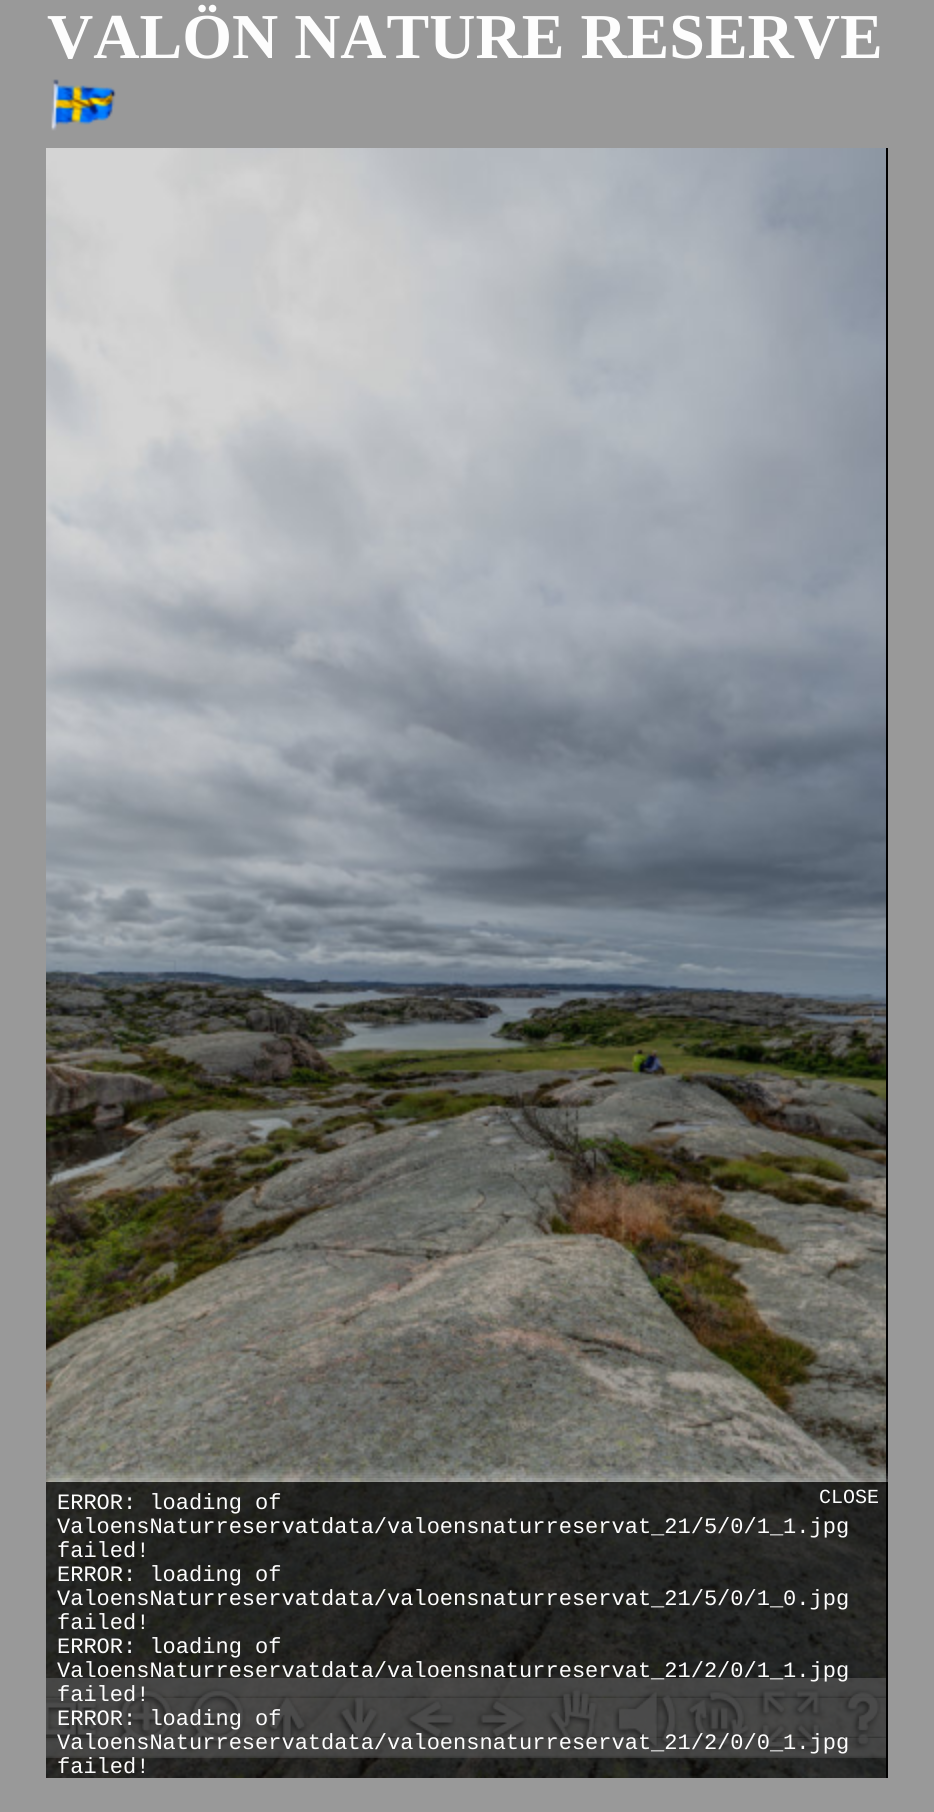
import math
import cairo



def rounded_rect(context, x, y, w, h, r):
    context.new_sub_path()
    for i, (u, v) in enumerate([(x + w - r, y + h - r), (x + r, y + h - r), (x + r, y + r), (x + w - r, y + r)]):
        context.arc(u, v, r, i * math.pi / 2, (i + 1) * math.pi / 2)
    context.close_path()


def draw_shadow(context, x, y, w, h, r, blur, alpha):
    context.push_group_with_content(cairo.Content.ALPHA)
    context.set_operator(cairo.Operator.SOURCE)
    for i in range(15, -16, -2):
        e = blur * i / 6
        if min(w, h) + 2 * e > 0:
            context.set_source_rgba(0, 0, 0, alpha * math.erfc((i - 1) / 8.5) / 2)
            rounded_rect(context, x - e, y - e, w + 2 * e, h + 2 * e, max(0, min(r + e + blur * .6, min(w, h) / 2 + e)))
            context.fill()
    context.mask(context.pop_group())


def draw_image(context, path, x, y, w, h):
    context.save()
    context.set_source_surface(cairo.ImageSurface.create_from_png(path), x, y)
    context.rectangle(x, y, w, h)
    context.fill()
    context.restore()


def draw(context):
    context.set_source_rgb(153 / 255, 153 / 255, 153 / 255)
    context.paint()
    draw_image(context, "images/1.png", 51, 79, 65, 52)
    context.set_source_rgb(0, 0, 0)
    context.rectangle(886, 148, 2, 1630)
    context.fill()
    draw_image(context, "images/2.png", 46, 148, 840, 1630)
    draw_image(context, "images/3.png", 46, 1678, 840, 20)
    draw_image(context, "images/4.png", 46, 1698, 840, 40)
    draw_image(context, "images/5.png", 46, 1738, 840, 20)
    draw_image(context, "images/6.png", 46, 1699, 59, 43)
    draw_image(context, "images/7.png", 109, 1688, 66, 65)
    draw_image(context, "images/8.png", 182, 1687, 65, 66)
    draw_image(context, "images/9.png", 264, 1695, 43, 52)
    draw_image(context, "images/10.png", 336, 1695, 44, 51)
    draw_image(context, "images/11.png", 404, 1699, 52, 43)
    draw_image(context, "images/12.png", 476, 1699, 51, 43)
    draw_image(context, "images/13.png", 546, 1687, 54, 64)
    draw_image(context, "images/14.png", 613, 1690, 66, 61)
    draw_image(context, "images/15.png", 684, 1689, 67, 62)
    draw_image(context, "images/16.png", 757, 1688, 65, 65)
    draw_image(context, "images/17.png", 842, 1689, 39, 61)
    context.save()
    context.rectangle(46, 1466, 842, 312)
    context.clip()
    context.rectangle(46, 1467, 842, 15)
    context.clip()
    context.set_source_rgb(1, 1, 1)
    draw_shadow(context, 46, 1482, 842, 312, 0, 8, 0.67)
    context.restore()
    context.set_source_rgba(0, 0, 0, 0.67)
    context.rectangle(46, 1482, 840, 296)
    context.fill()
    context.select_font_face("Liberation Serif", cairo.FontSlant.NORMAL, cairo.FontWeight.BOLD)
    context.set_font_size(64)
    context.set_source_rgb(253 / 255, 253 / 255, 253 / 255)
    context.move_to(47, 58)
    context.show_text("VALÖN NATURE RESERVE")
    context.select_font_face("Liberation Mono")
    context.set_font_size(22)
    context.move_to(57, 1509)
    context.show_text("ERROR: loading of")
    context.move_to(57, 1533)
    context.show_text("ValoensNaturreservatdata/valoensnaturreservat_21/5/0/1_1.jpg")
    context.move_to(57, 1557)
    context.show_text("failed!")
    context.move_to(57, 1581)
    context.show_text("ERROR: loading of")
    context.move_to(57, 1605)
    context.show_text("ValoensNaturreservatdata/valoensnaturreservat_21/5/0/1_0.jpg")
    context.move_to(57, 1629)
    context.show_text("failed!")
    context.move_to(57, 1653)
    context.show_text("ERROR: loading of")
    context.move_to(57, 1677)
    context.show_text("ValoensNaturreservatdata/valoensnaturreservat_21/2/0/1_1.jpg")
    context.move_to(57, 1701)
    context.show_text("failed!")
    context.move_to(57, 1725)
    context.show_text("ERROR: loading of")
    context.move_to(57, 1749)
    context.show_text("ValoensNaturreservatdata/valoensnaturreservat_21/2/0/0_1.jpg")
    context.move_to(57, 1773)
    context.show_text("failed!")
    context.set_font_size(20)
    context.move_to(819, 1503)
    context.show_text("CLOSE")


surface = cairo.ImageSurface(cairo.Format.RGB24, 934, 1812)
context = cairo.Context(surface)
options = cairo.FontOptions()
options.set_hint_metrics(cairo.HintMetrics.OFF)
options.set_hint_style(cairo.HintStyle.NONE)
context.set_font_options(options)
context.set_miter_limit(4)
draw(context)
surface.write_to_png("out.png")
